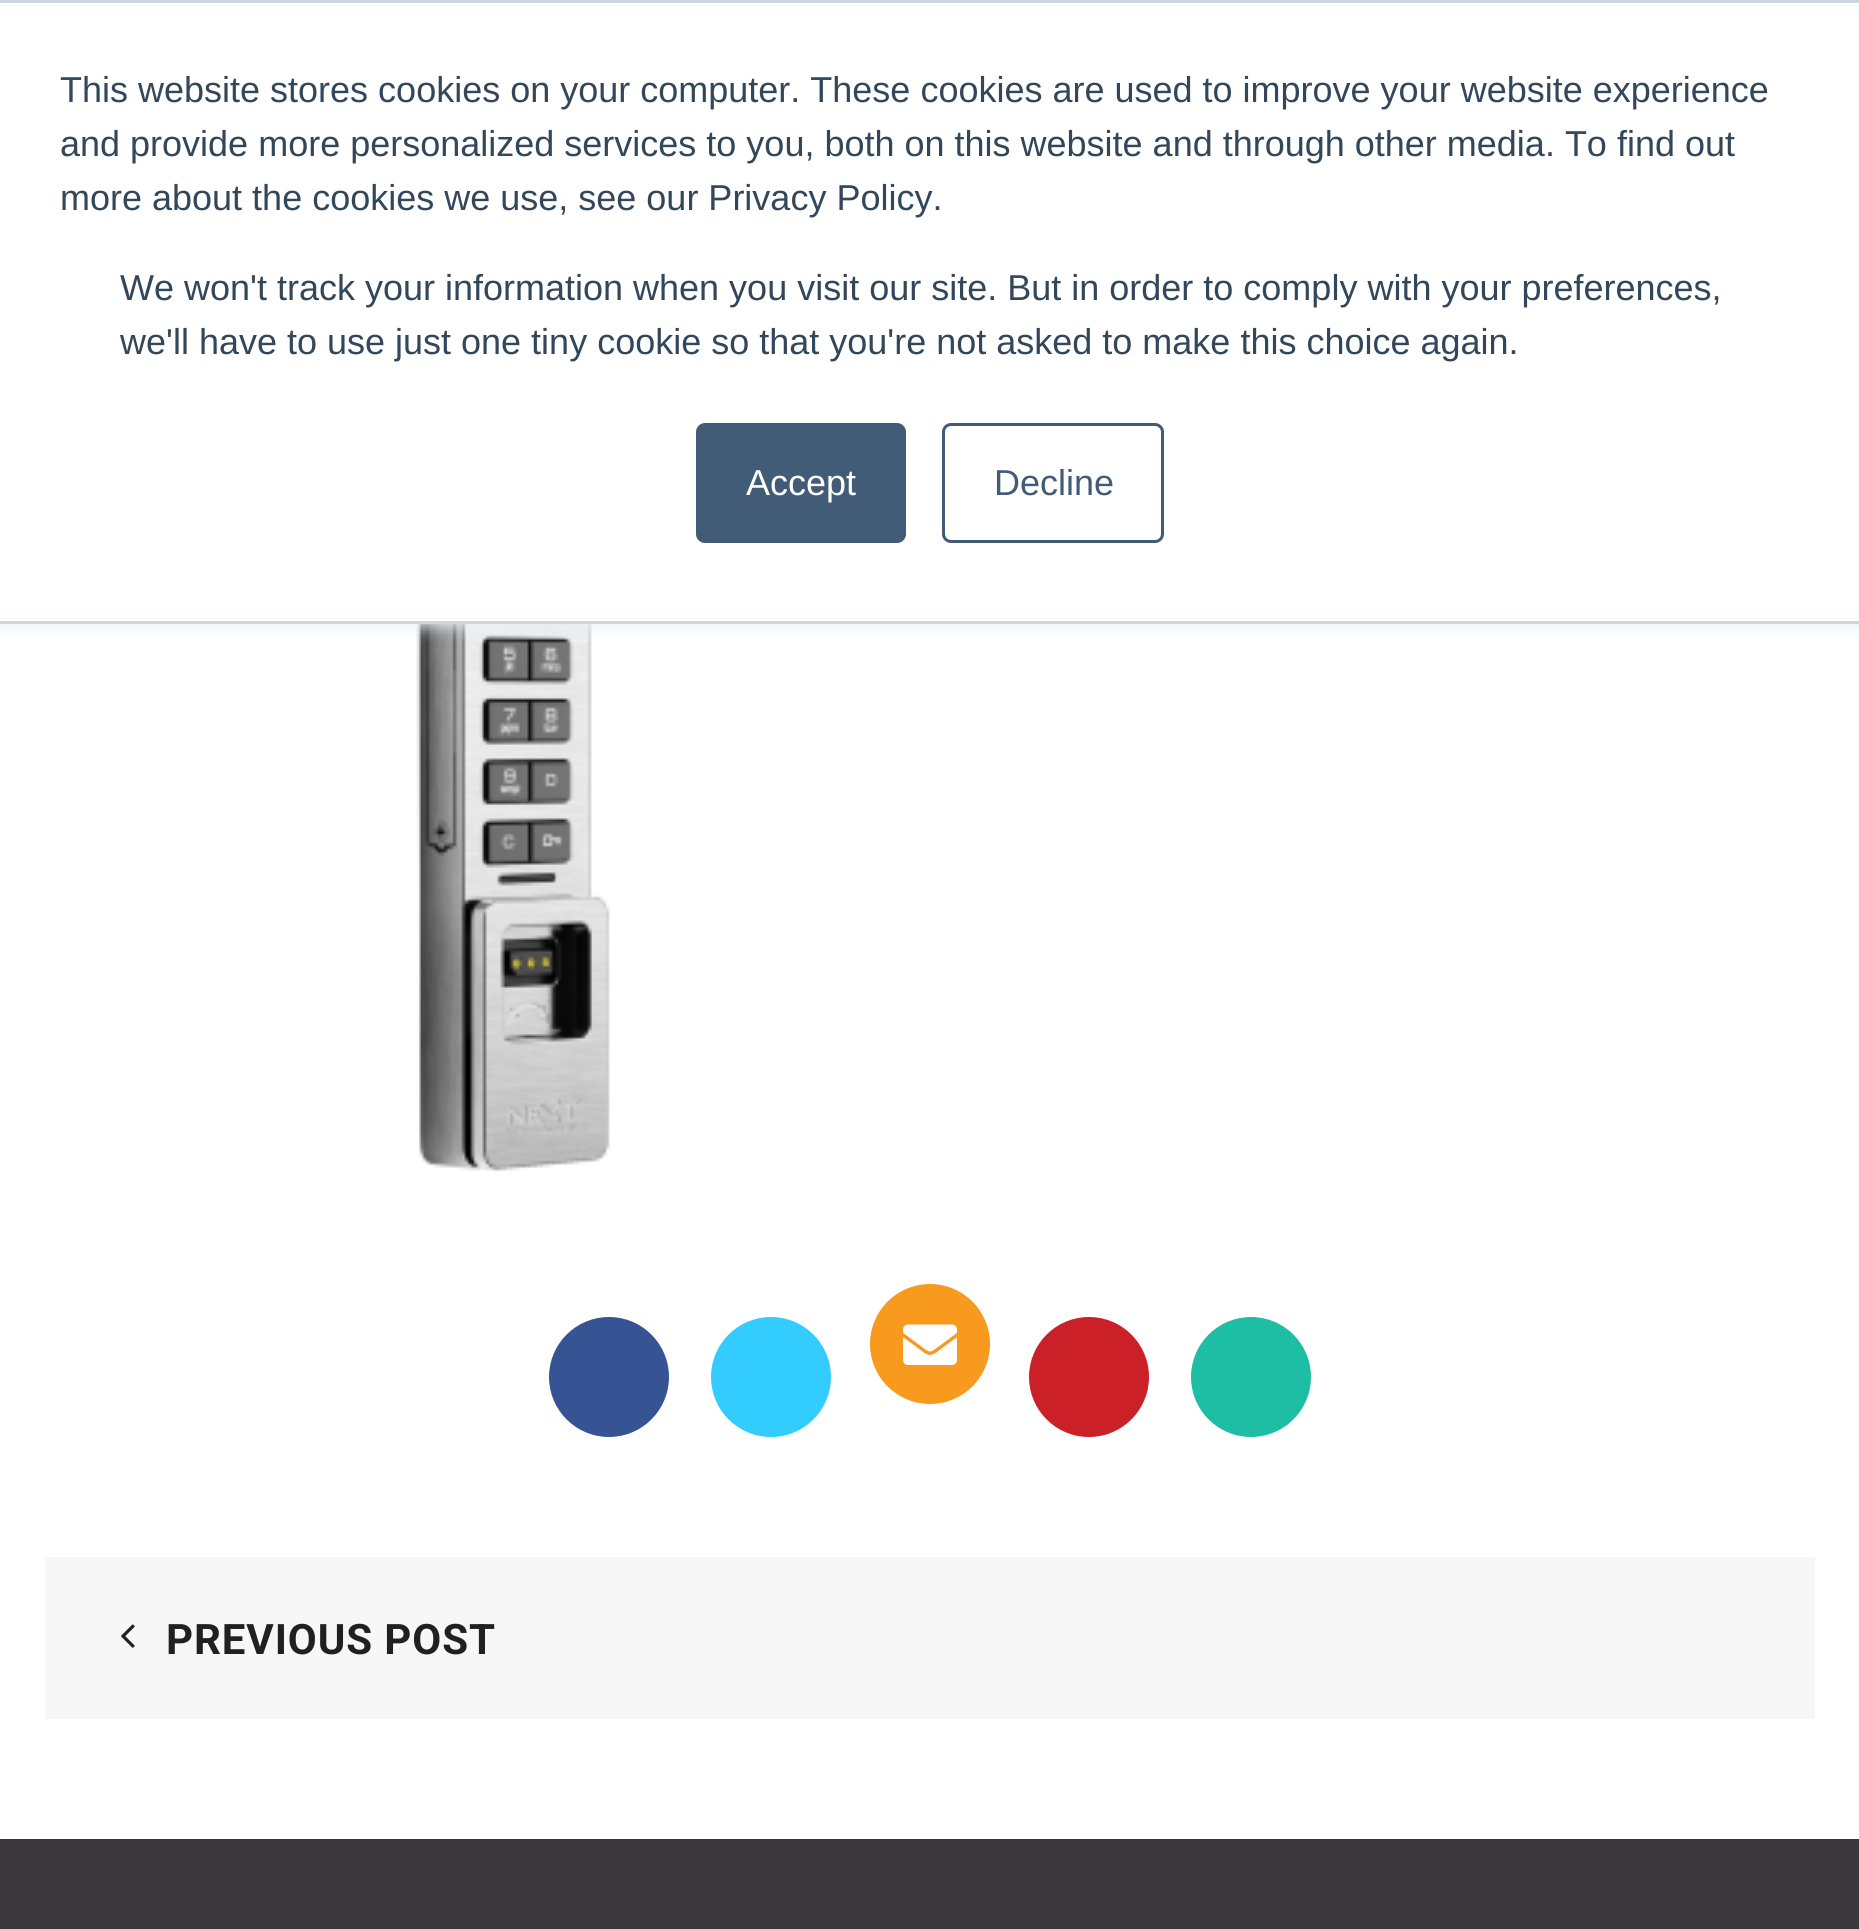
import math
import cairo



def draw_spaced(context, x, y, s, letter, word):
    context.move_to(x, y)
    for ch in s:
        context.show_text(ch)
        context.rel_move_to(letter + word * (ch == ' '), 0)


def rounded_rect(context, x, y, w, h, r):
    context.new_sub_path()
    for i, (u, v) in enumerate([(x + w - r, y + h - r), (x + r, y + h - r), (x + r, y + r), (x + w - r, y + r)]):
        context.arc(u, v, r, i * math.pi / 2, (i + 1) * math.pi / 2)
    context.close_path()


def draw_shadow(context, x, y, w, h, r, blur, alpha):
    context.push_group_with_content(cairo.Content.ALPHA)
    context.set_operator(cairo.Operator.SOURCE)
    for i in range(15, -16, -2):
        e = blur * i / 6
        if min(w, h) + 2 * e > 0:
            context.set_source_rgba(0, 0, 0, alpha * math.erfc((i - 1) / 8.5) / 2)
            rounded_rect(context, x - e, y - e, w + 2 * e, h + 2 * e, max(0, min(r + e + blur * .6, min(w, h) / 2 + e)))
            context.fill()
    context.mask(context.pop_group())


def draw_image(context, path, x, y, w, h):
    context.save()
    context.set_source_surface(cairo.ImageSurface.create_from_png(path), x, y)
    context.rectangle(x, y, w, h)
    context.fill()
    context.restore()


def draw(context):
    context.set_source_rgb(1, 1, 1)
    context.paint()
    draw_image(context, "images/1.png", 416, 624, 194, 547)
    context.set_source_rgb(234 / 255, 240 / 255, 246 / 255)
    draw_shadow(context, 0, 3, 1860, 624, 0, 7.5, 1)
    context.set_source_rgb(1, 1, 1)
    context.rectangle(0, 3, 1859, 618)
    context.fill()
    context.set_source_rgb(203 / 255, 214 / 255, 226 / 255)
    context.rectangle(0, 0, 1859, 3)
    context.fill()
    context.rectangle(0, 621, 1859, 3)
    context.fill()
    context.set_source_rgb(66 / 255, 91 / 255, 118 / 255)
    rounded_rect(context, 697.5, 424.5, 207, 117, 7.5)
    context.fill_preserve()
    context.set_line_width(3)
    context.stroke()
    rounded_rect(context, 943.5, 424.5, 219, 117, 7.5)
    context.stroke()
    context.set_source_rgb(54 / 255, 84 / 255, 147 / 255)
    context.arc(609, 1377, 60, 0, 2 * math.pi)
    context.fill()
    context.set_source_rgb(51 / 255, 204 / 255, 1)
    context.arc(771, 1377, 60, 0, 2 * math.pi)
    context.fill()
    context.set_source_rgb(248 / 255, 154 / 255, 30 / 255)
    context.arc(930, 1344, 60, 0, 2 * math.pi)
    context.fill()
    draw_image(context, "images/2.png", 903, 1324, 54, 41)
    context.set_source_rgb(203 / 255, 32 / 255, 39 / 255)
    context.arc(1089, 1377, 60, 0, 2 * math.pi)
    context.fill()
    context.set_source_rgb(30 / 255, 190 / 255, 165 / 255)
    context.arc(1251, 1377, 60, 0, 2 * math.pi)
    context.fill()
    context.set_source_rgb(247 / 255, 247 / 255, 247 / 255)
    context.rectangle(45, 1557, 1770, 162)
    context.fill()
    draw_image(context, "images/3.png", 121, 1624, 14, 24)
    context.set_source_rgb(59 / 255, 56 / 255, 61 / 255)
    context.rectangle(0, 1839, 1859, 90)
    context.fill()
    context.select_font_face("Liberation Sans")
    context.set_font_size(36)
    context.set_source_rgb(51 / 255, 71 / 255, 91 / 255)
    context.move_to(60, 102)
    context.show_text("This website stores cookies on your computer. These cookies are used to improve your website experience")
    context.move_to(60, 156)
    context.show_text("and provide more personalized services to you, both on this website and through other media. To find out")
    context.move_to(60, 210)
    context.show_text("more about the cookies we use, see our Privacy Policy.")
    context.move_to(120, 300)
    context.show_text("We won't track your information when you visit our site. But in order to comply with your preferences,")
    context.move_to(120, 354)
    context.show_text("we'll have to use just one tiny cookie so that you're not asked to make this choice again.")
    context.set_source_rgb(1, 1, 1)
    context.move_to(746, 495)
    context.show_text("Accept")
    context.set_source_rgb(66 / 255, 91 / 255, 118 / 255)
    context.move_to(994, 495)
    context.show_text("Decline")
    context.select_font_face("Roboto", cairo.FontSlant.NORMAL, cairo.FontWeight.BOLD)
    context.set_font_size(42)
    context.set_source_rgb(32 / 255, 32 / 255, 32 / 255)
    draw_spaced(context, 166, 1654, "PREVIOUS POST", 0.9, 0)


surface = cairo.ImageSurface(cairo.Format.RGB24, 1859, 1929)
context = cairo.Context(surface)
options = cairo.FontOptions()
options.set_hint_metrics(cairo.HintMetrics.OFF)
options.set_hint_style(cairo.HintStyle.NONE)
context.set_font_options(options)
context.set_miter_limit(4)
draw(context)
surface.write_to_png("out.png")
